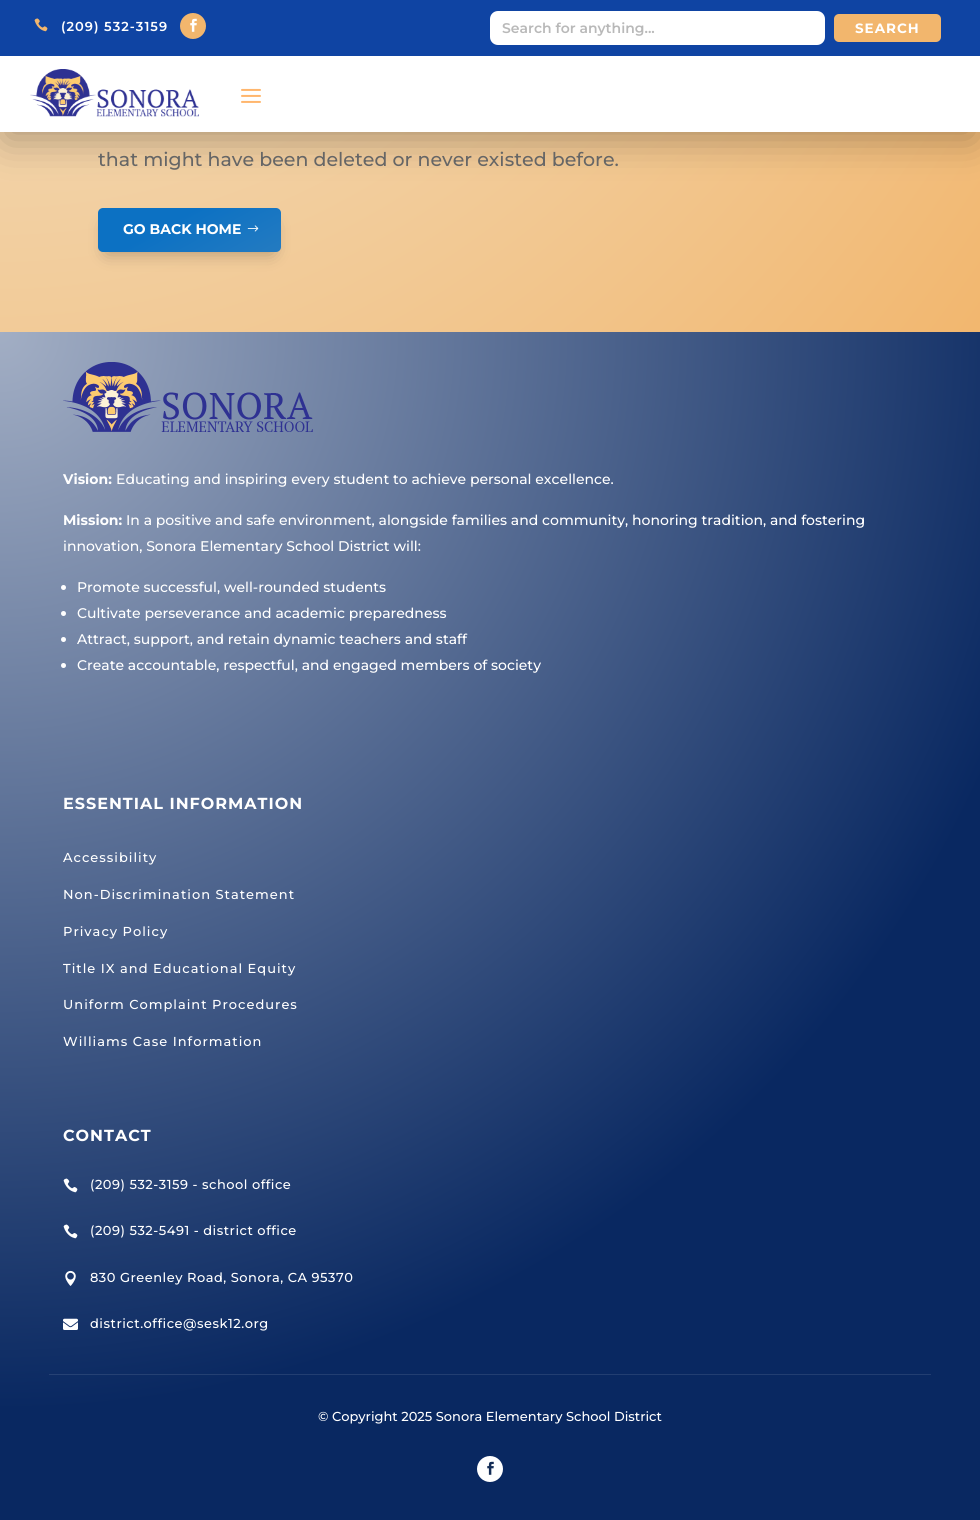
import math
import cairo



def draw_spaced(context, x, y, s, letter, word):
    context.move_to(x, y)
    for ch in s:
        context.show_text(ch)
        context.rel_move_to(letter + word * (ch == ' '), 0)


def rounded_rect(context, x, y, w, h, r):
    context.new_sub_path()
    for i, (u, v) in enumerate([(x + w - r, y + h - r), (x + r, y + h - r), (x + r, y + r), (x + w - r, y + r)]):
        context.arc(u, v, r, i * math.pi / 2, (i + 1) * math.pi / 2)
    context.close_path()


def draw_shadow(context, x, y, w, h, r, blur, alpha):
    context.push_group_with_content(cairo.Content.ALPHA)
    context.set_operator(cairo.Operator.SOURCE)
    for i in range(15, -16, -2):
        e = blur * i / 6
        if min(w, h) + 2 * e > 0:
            context.set_source_rgba(0, 0, 0, alpha * math.erfc((i - 1) / 8.5) / 2)
            rounded_rect(context, x - e, y - e, w + 2 * e, h + 2 * e, max(0, min(r + e + blur * .6, min(w, h) / 2 + e)))
            context.fill()
    context.mask(context.pop_group())


def draw_image(context, path, x, y, w, h):
    context.save()
    context.set_source_surface(cairo.ImageSurface.create_from_png(path), x, y)
    context.rectangle(x, y, w, h)
    context.fill()
    context.restore()


def draw(context):
    context.set_source_rgb(1, 1, 1)
    context.paint()
    gradient = cairo.RadialGradient(0, 0, 0, 0, 0, 1)
    gradient.set_matrix(cairo.Matrix(1 / 1386, 0, 0, 1 / 1895, -1 * 0 / 1386, -1 * -983 / 1895))
    gradient.add_color_stop_rgba(0.3, 242 / 255, 230 / 255, 208 / 255, 1)
    gradient.add_color_stop_rgba(1, 242 / 255, 182 / 255, 109 / 255, 1)
    context.set_source(gradient)
    context.rectangle(0, 132, 980, 200)
    context.fill()
    context.set_source_rgb(0, 0, 0)
    draw_shadow(context, 6, 18, 968, 120, 0, 20, 0.3)
    context.set_source_rgb(1, 1, 1)
    context.rectangle(0, 56, 980, 76)
    context.fill()
    context.set_source_rgb(15 / 255, 68 / 255, 163 / 255)
    context.rectangle(0, 0, 980, 56)
    context.fill()
    draw_image(context, "images/1.png", 34, 18, 14, 14)
    context.set_source_rgb(242 / 255, 182 / 255, 109 / 255)
    context.arc(193, 26, 13, 0, 2 * math.pi)
    context.fill()
    draw_image(context, "images/2.png", 190, 18, 7, 14)
    context.set_source_rgb(1, 1, 1)
    rounded_rect(context, 490, 11, 335, 34, 8)
    context.fill()
    context.set_source_rgb(242 / 255, 182 / 255, 109 / 255)
    rounded_rect(context, 834, 14, 107, 28, 5)
    context.fill()
    draw_image(context, "images/3.png", 30, 69, 169, 48)
    draw_image(context, "images/4.png", 241, 88, 20, 15)
    context.set_source_rgb(0, 0, 0)
    draw_shadow(context, 107, 226, 165, 26, 0, 9, 0.3)
    gradient = cairo.LinearGradient(159, 174, 220, 286)
    gradient.add_color_stop_rgba(0.38, 12 / 255, 113 / 255, 195 / 255, 1)
    gradient.add_color_stop_rgba(1, 36 / 255, 123 / 255, 193 / 255, 1)
    context.set_source(gradient)
    rounded_rect(context, 98, 208, 183, 44, 5)
    context.fill()
    draw_image(context, "images/5.png", 247, 225, 12, 7)
    gradient = cairo.RadialGradient(0, 332, 0, 0, 332, 1540)
    gradient.add_color_stop_rgba(0, 162 / 255, 174 / 255, 196 / 255, 1)
    gradient.add_color_stop_rgba(0.7, 9 / 255, 40 / 255, 97 / 255, 1)
    context.set_source(gradient)
    context.rectangle(0, 332, 980, 1188)
    context.fill()
    gradient = cairo.RadialGradient(0, 332, 0, 0, 332, 1540)
    gradient.add_color_stop_rgba(0, 171 / 255, 182 / 255, 202 / 255, 1)
    gradient.add_color_stop_rgba(0.7, 34 / 255, 62 / 255, 113 / 255, 1)
    context.set_source(gradient)
    context.rectangle(49, 1374, 882, 1)
    context.fill()
    draw_image(context, "images/6.png", 63, 362, 250, 70)
    context.set_source_rgb(1, 1, 1)
    context.arc(63.5, 587.5, 2.5, 0, 2 * math.pi)
    context.fill()
    context.arc(63.5, 613.5, 2.5, 0, 2 * math.pi)
    context.fill()
    context.arc(63.5, 639.5, 2.5, 0, 2 * math.pi)
    context.fill()
    context.arc(63.5, 665.5, 2.5, 0, 2 * math.pi)
    context.fill()
    draw_image(context, "images/7.png", 63, 1178, 15, 15)
    draw_image(context, "images/8.png", 63, 1224, 15, 15)
    draw_image(context, "images/9.png", 65, 1270, 11, 16)
    draw_image(context, "images/10.png", 63, 1318, 15, 12)
    context.arc(490, 1469, 13, 0, 2 * math.pi)
    context.fill()
    draw_image(context, "images/11.png", 487, 1461, 7, 14)
    context.select_font_face("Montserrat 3 Thin")
    context.set_font_size(13)
    draw_spaced(context, 61, 31, "(209) 532-3159", 1, 0)
    context.set_font_size(14)
    context.set_source_rgb(185 / 255, 185 / 255, 185 / 255)
    context.move_to(502, 33)
    context.show_text("Search for anything...")
    context.select_font_face("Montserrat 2 Thin")
    context.set_font_size(13.5)
    context.set_source_rgb(1, 1, 1)
    draw_spaced(context, 855, 33, "SEARCH", 1, 0)
    context.select_font_face("Montserrat Thin")
    context.set_font_size(19)
    context.set_source_rgb(102 / 255, 102 / 255, 102 / 255)
    context.move_to(98, 166)
    context.show_text("that might have been deleted or never existed before.")
    context.select_font_face("Montserrat 2 Thin")
    context.set_font_size(14)
    context.set_source_rgb(1, 1, 1)
    context.move_to(123, 234)
    context.show_text("GO BACK HOME")
    context.move_to(63, 484)
    context.show_text("Vision:")
    context.select_font_face("Montserrat Thin")
    context.move_to(116, 484)
    context.show_text("Educating and inspiring every student to achieve personal excellence.")
    context.select_font_face("Montserrat 2 Thin")
    context.move_to(63, 525)
    context.show_text("Mission:")
    context.select_font_face("Montserrat Thin")
    context.move_to(126, 525)
    context.show_text("In a positive and safe environment, alongside families and community, honoring tradition, and fostering")
    context.move_to(63, 551)
    context.show_text("innovation, Sonora Elementary School District will:")
    context.move_to(77, 592)
    context.show_text("Promote successful, well-rounded students")
    context.move_to(77, 618)
    context.show_text("Cultivate perseverance and academic preparedness")
    context.move_to(77, 644)
    context.show_text("Attract, support, and retain dynamic teachers and staff")
    context.move_to(77, 670)
    context.show_text("Create accountable, respectful, and engaged members of society")
    context.select_font_face("Montserrat 2 Thin")
    context.set_font_size(16)
    draw_spaced(context, 63, 809, "ESSENTIAL INFORMATION", 1, 0)
    context.select_font_face("Montserrat Thin")
    context.set_font_size(13)
    draw_spaced(context, 63, 862, "Accessibility", 1, 0)
    draw_spaced(context, 63, 899, "Non-Discrimination Statement", 1, 0)
    draw_spaced(context, 63, 936, "Privacy Policy", 1, 0)
    draw_spaced(context, 63, 973, "Title IX and Educational Equity", 1, 0)
    draw_spaced(context, 63, 1009, "Uniform Complaint Procedures", 1, 0)
    draw_spaced(context, 63, 1046, "Williams Case Information", 1, 0)
    context.select_font_face("Montserrat 2 Thin")
    context.set_font_size(16)
    draw_spaced(context, 63, 1141, "CONTACT", 1, 0)
    context.select_font_face("Montserrat Thin")
    context.set_font_size(13)
    draw_spaced(context, 90, 1189, "(209) 532-3159 - school office", 0.5, 0)
    draw_spaced(context, 90, 1235, "(209) 532-5491 - district office", 0.5, 0)
    draw_spaced(context, 90, 1282, "830 Greenley Road, Sonora, CA 95370", 0.5, 0)
    draw_spaced(context, 90, 1328, "district.office@sesk12.org", 0.5, 0)
    context.move_to(318, 1421)
    context.show_text("© Copyright 2025 Sonora Elementary School District")


surface = cairo.ImageSurface(cairo.Format.RGB24, 980, 1520)
context = cairo.Context(surface)
options = cairo.FontOptions()
options.set_hint_metrics(cairo.HintMetrics.OFF)
options.set_hint_style(cairo.HintStyle.NONE)
context.set_font_options(options)
context.set_miter_limit(4)
draw(context)
surface.write_to_png("out.png")
